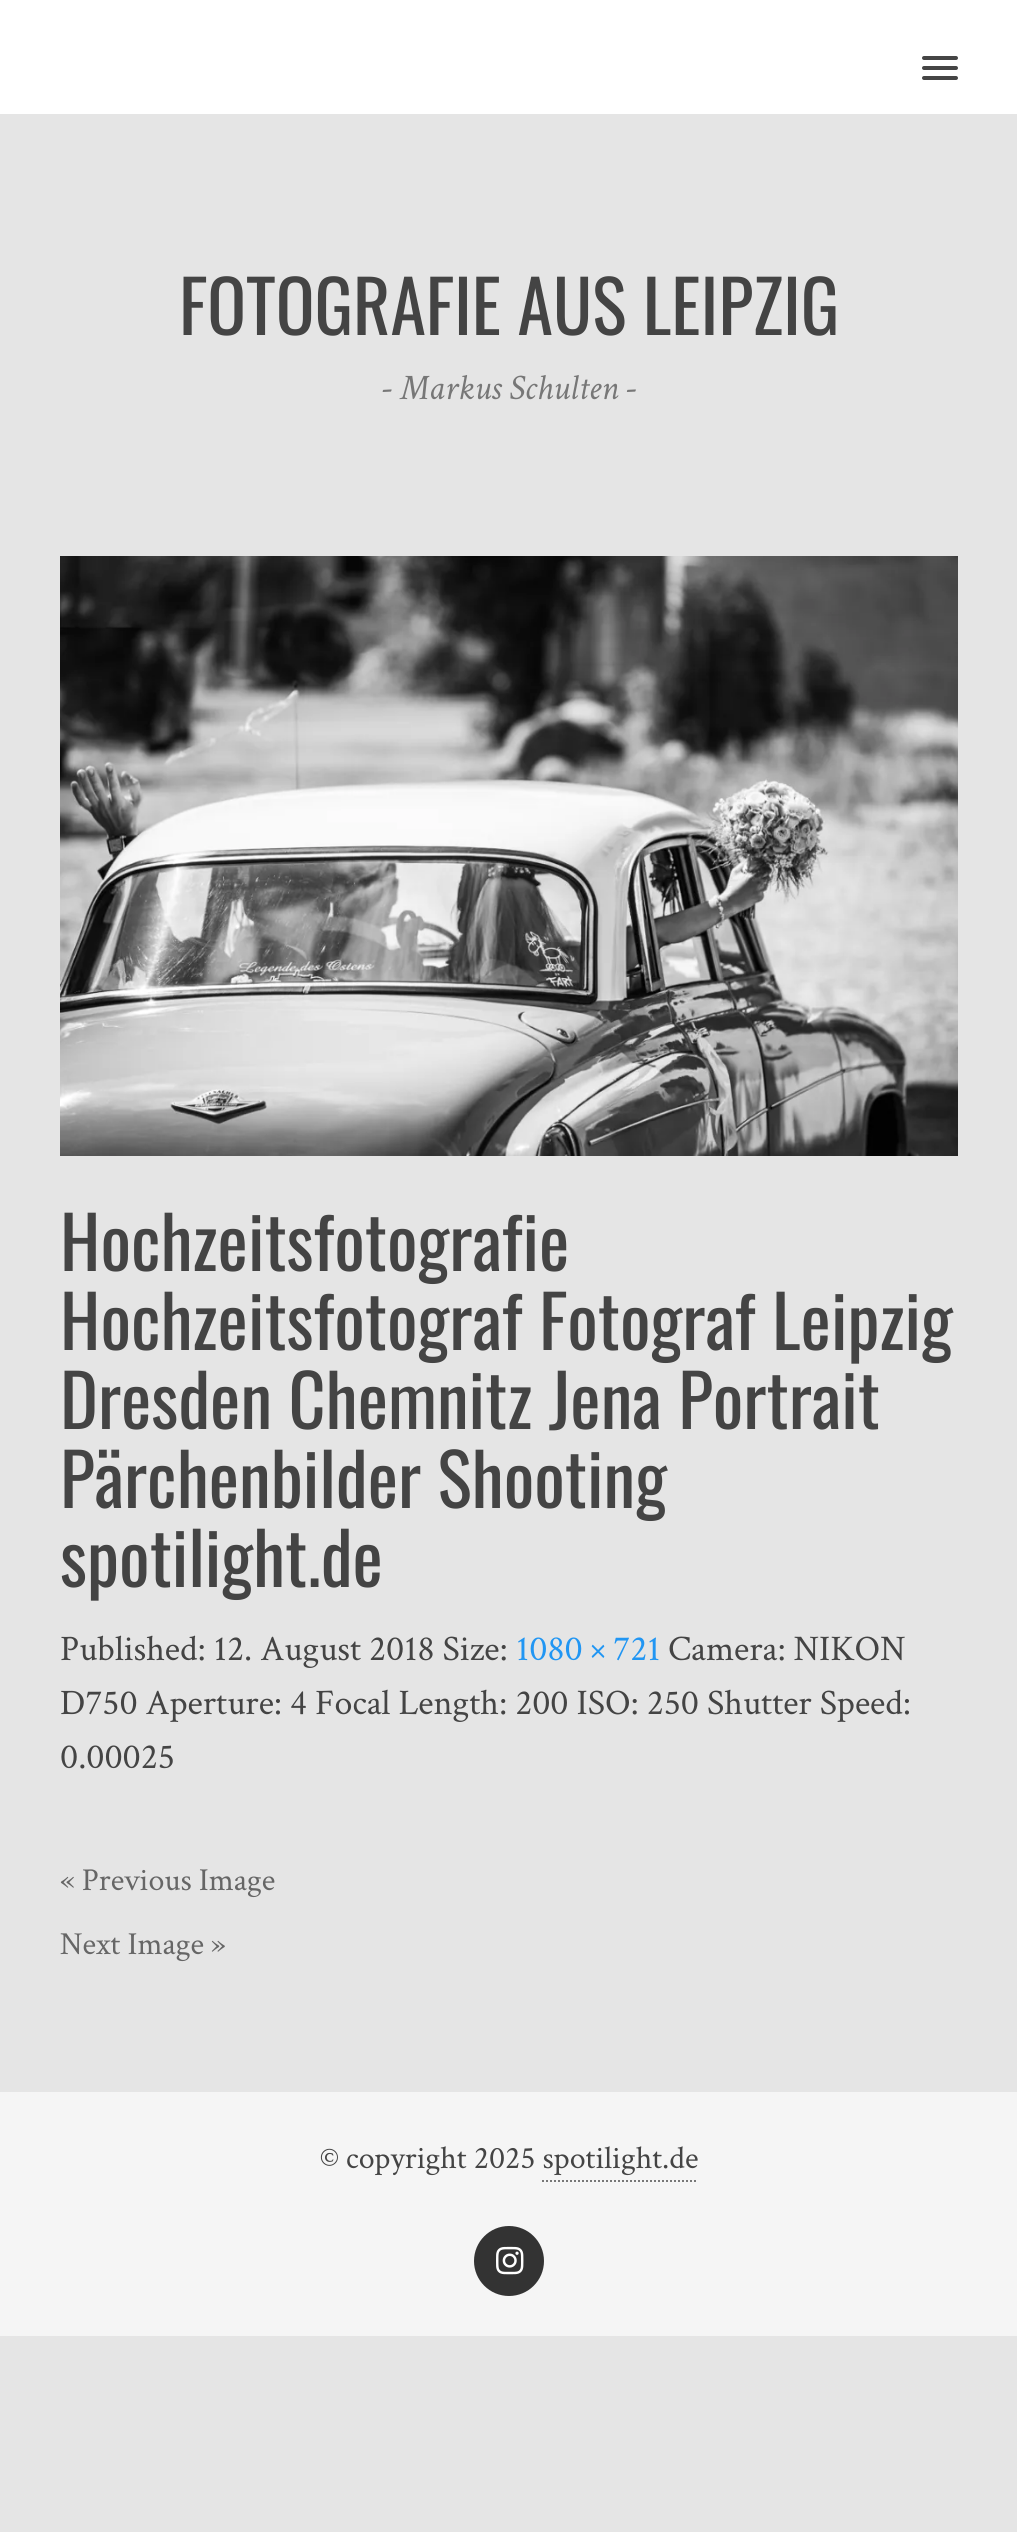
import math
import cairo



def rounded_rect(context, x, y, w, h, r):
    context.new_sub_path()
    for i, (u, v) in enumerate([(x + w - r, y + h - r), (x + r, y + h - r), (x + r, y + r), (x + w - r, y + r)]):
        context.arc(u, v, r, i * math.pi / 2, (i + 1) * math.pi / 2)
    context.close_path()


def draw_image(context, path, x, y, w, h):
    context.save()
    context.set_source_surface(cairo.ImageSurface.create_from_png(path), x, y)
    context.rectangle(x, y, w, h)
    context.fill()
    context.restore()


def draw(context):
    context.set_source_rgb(229 / 255, 229 / 255, 229 / 255)
    context.paint()
    context.set_source_rgb(1, 1, 1)
    context.rectangle(0, 0, 1017, 114)
    context.fill()
    context.set_source_rgb(69 / 255, 69 / 255, 69 / 255)
    rounded_rect(context, 922, 56, 36, 4, 2)
    context.fill()
    rounded_rect(context, 922, 66, 36, 4, 2)
    context.fill()
    rounded_rect(context, 922, 76, 36, 4, 2)
    context.fill()
    draw_image(context, "images/1.png", 60, 556, 898, 600)
    context.set_source_rgb(245 / 255, 245 / 255, 245 / 255)
    context.rectangle(0, 2092, 1017, 244)
    context.fill()
    context.new_path()
    context.move_to(542, 2181)
    context.line_to(698, 2181)
    context.set_source_rgb(119 / 255, 119 / 255, 119 / 255)
    context.set_dash([2, 2])
    context.stroke()
    context.set_source_rgb(51 / 255, 51 / 255, 51 / 255)
    context.arc(509, 2261, 35, 0, 2 * math.pi)
    context.fill()
    draw_image(context, "images/2.png", 496, 2246, 28, 29)
    context.select_font_face("Oswald")
    context.set_font_size(72)
    context.set_source_rgb(68 / 255, 68 / 255, 68 / 255)
    context.move_to(179, 335)
    context.show_text("FOTOGRAFIE AUS LEIPZIG")
    context.select_font_face("Crimson Text", cairo.FontSlant.ITALIC)
    context.set_font_size(36)
    context.set_source_rgb(119 / 255, 119 / 255, 119 / 255)
    context.move_to(382, 399)
    context.show_text("- Markus Schulten -")
    context.select_font_face("Oswald")
    context.set_font_size(72)
    context.set_source_rgb(68 / 255, 68 / 255, 68 / 255)
    context.move_to(60, 1271)
    context.show_text("Hochzeitsfotografie")
    context.move_to(60, 1350)
    context.show_text("Hochzeitsfotograf Fotograf Leipzig")
    context.move_to(60, 1429)
    context.show_text("Dresden Chemnitz Jena Portrait")
    context.move_to(60, 1508)
    context.show_text("Pärchenbilder Shooting")
    context.move_to(60, 1587)
    context.show_text("spotilight.de")
    context.select_font_face("Crimson Text")
    context.set_font_size(36)
    context.move_to(60, 1660)
    context.show_text("Published: 12. August 2018 Size:")
    context.set_source_rgb(33 / 255, 150 / 255, 243 / 255)
    context.move_to(516, 1660)
    context.show_text("1080 × 721")
    context.set_source_rgb(68 / 255, 68 / 255, 68 / 255)
    context.move_to(668, 1660)
    context.show_text("Camera: NIKON")
    context.move_to(60, 1714)
    context.show_text("D750 Aperture: 4 Focal Length: 200 ISO: 250 Shutter Speed:")
    context.move_to(60, 1768)
    context.show_text("0.00025")
    context.set_font_size(32)
    context.set_source_rgb(102 / 255, 102 / 255, 102 / 255)
    context.move_to(60, 1890)
    context.show_text("« Previous Image")
    context.move_to(60, 1954)
    context.show_text("Next Image »")
    context.set_source_rgb(68 / 255, 68 / 255, 68 / 255)
    context.move_to(320, 2168)
    context.show_text("© copyright 2025 spotilight.de")


surface = cairo.ImageSurface(cairo.Format.RGB24, 1017, 2532)
context = cairo.Context(surface)
options = cairo.FontOptions()
options.set_hint_metrics(cairo.HintMetrics.OFF)
options.set_hint_style(cairo.HintStyle.NONE)
context.set_font_options(options)
context.set_miter_limit(4)
draw(context)
surface.write_to_png("out.png")
